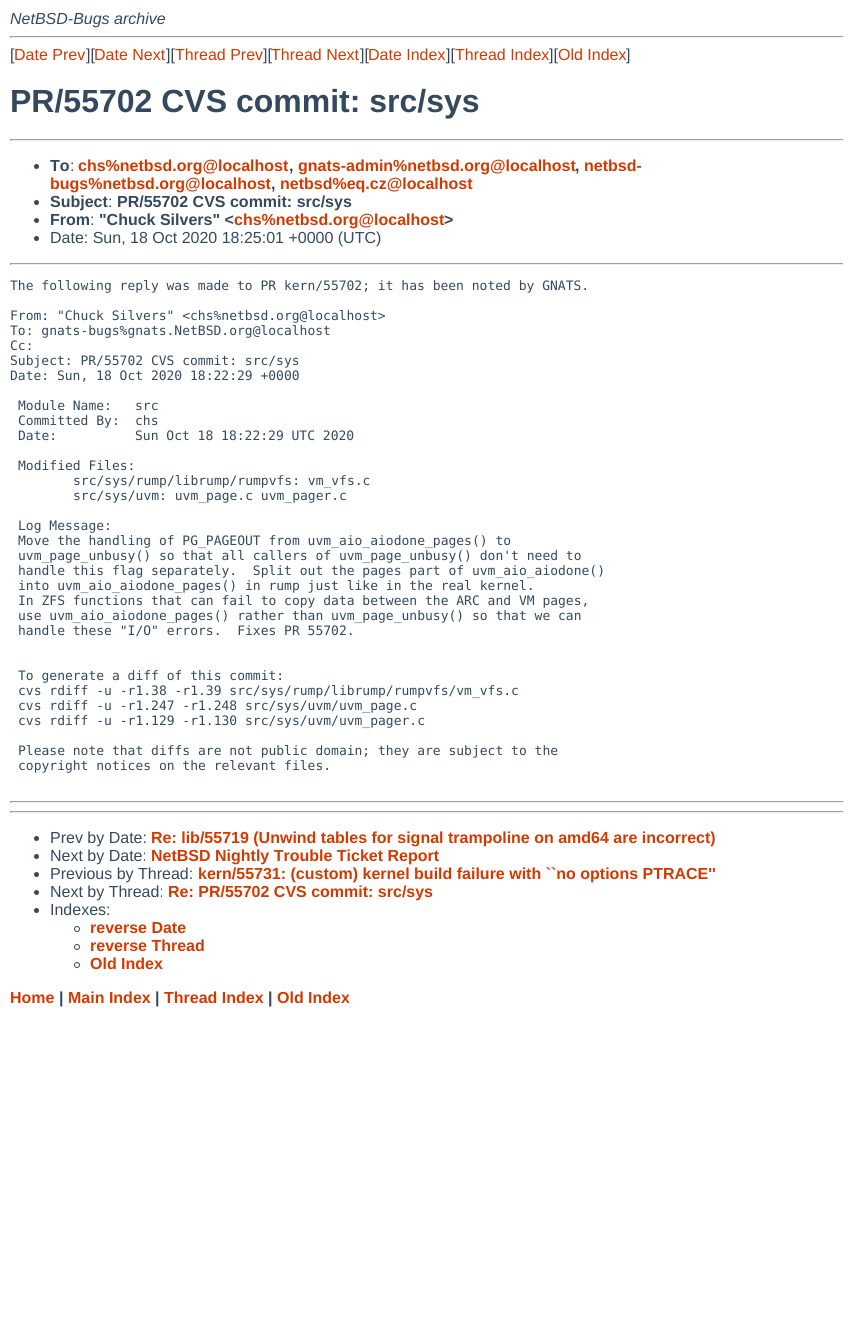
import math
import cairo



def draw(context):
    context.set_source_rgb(1, 1, 1)
    context.paint()
    context.set_source_rgb(159 / 255, 159 / 255, 159 / 255)
    context.rectangle(10, 36, 834, 1)
    context.fill()
    context.set_source_rgb(238 / 255, 238 / 255, 238 / 255)
    context.rectangle(843, 36, 1, 2)
    context.fill()
    context.rectangle(10, 37, 834, 1)
    context.fill()
    context.set_source_rgb(159 / 255, 159 / 255, 159 / 255)
    context.rectangle(10, 36, 1, 2)
    context.fill()
    context.rectangle(10, 139, 834, 1)
    context.fill()
    context.set_source_rgb(238 / 255, 238 / 255, 238 / 255)
    context.rectangle(843, 139, 1, 2)
    context.fill()
    context.rectangle(10, 140, 834, 1)
    context.fill()
    context.set_source_rgb(159 / 255, 159 / 255, 159 / 255)
    context.rectangle(10, 139, 1, 2)
    context.fill()
    context.set_source_rgb(52 / 255, 73 / 255, 94 / 255)
    context.arc(36.5, 166.5, 2.5, 0, 2 * math.pi)
    context.fill()
    context.arc(36.5, 202.5, 2.5, 0, 2 * math.pi)
    context.fill()
    context.arc(36.5, 220.5, 2.5, 0, 2 * math.pi)
    context.fill()
    context.arc(36.5, 238.5, 2.5, 0, 2 * math.pi)
    context.fill()
    context.set_source_rgb(159 / 255, 159 / 255, 159 / 255)
    context.rectangle(10, 263, 834, 1)
    context.fill()
    context.set_source_rgb(238 / 255, 238 / 255, 238 / 255)
    context.rectangle(843, 263, 1, 2)
    context.fill()
    context.rectangle(10, 264, 834, 1)
    context.fill()
    context.set_source_rgb(159 / 255, 159 / 255, 159 / 255)
    context.rectangle(10, 263, 1, 2)
    context.fill()
    context.rectangle(10, 801, 834, 1)
    context.fill()
    context.set_source_rgb(238 / 255, 238 / 255, 238 / 255)
    context.rectangle(843, 801, 1, 2)
    context.fill()
    context.rectangle(10, 802, 834, 1)
    context.fill()
    context.set_source_rgb(159 / 255, 159 / 255, 159 / 255)
    context.rectangle(10, 801, 1, 2)
    context.fill()
    context.rectangle(10, 811, 834, 1)
    context.fill()
    context.set_source_rgb(238 / 255, 238 / 255, 238 / 255)
    context.rectangle(843, 811, 1, 2)
    context.fill()
    context.rectangle(10, 812, 834, 1)
    context.fill()
    context.set_source_rgb(159 / 255, 159 / 255, 159 / 255)
    context.rectangle(10, 811, 1, 2)
    context.fill()
    context.set_source_rgb(52 / 255, 73 / 255, 94 / 255)
    context.arc(36.5, 838.5, 2.5, 0, 2 * math.pi)
    context.fill()
    context.arc(36.5, 856.5, 2.5, 0, 2 * math.pi)
    context.fill()
    context.arc(36.5, 874.5, 2.5, 0, 2 * math.pi)
    context.fill()
    context.arc(36.5, 892.5, 2.5, 0, 2 * math.pi)
    context.fill()
    context.arc(36.5, 910.5, 2.5, 0, 2 * math.pi)
    context.fill()
    context.arc(77, 929, 2.5, 0, 2 * math.pi)
    context.set_line_width(1)
    context.stroke()
    context.arc(77, 947, 2.5, 0, 2 * math.pi)
    context.stroke()
    context.arc(77, 965, 2.5, 0, 2 * math.pi)
    context.stroke()
    context.select_font_face("Liberation Sans", cairo.FontSlant.ITALIC)
    context.set_font_size(16)
    context.move_to(10, 24)
    context.show_text("NetBSD-Bugs archive")
    context.select_font_face("Liberation Sans")
    context.move_to(10, 60)
    context.show_text("[")
    context.set_source_rgb(212 / 255, 57 / 255, 0)
    context.move_to(14, 60)
    context.show_text("Date Prev")
    context.set_source_rgb(52 / 255, 73 / 255, 94 / 255)
    context.move_to(86, 60)
    context.show_text("][")
    context.set_source_rgb(212 / 255, 57 / 255, 0)
    context.move_to(94, 60)
    context.show_text("Date Next")
    context.set_source_rgb(52 / 255, 73 / 255, 94 / 255)
    context.move_to(166, 60)
    context.show_text("][")
    context.set_source_rgb(212 / 255, 57 / 255, 0)
    context.move_to(175, 60)
    context.show_text("Thread Prev")
    context.set_source_rgb(52 / 255, 73 / 255, 94 / 255)
    context.move_to(263, 60)
    context.show_text("][")
    context.set_source_rgb(212 / 255, 57 / 255, 0)
    context.move_to(271, 60)
    context.show_text("Thread Next")
    context.set_source_rgb(52 / 255, 73 / 255, 94 / 255)
    context.move_to(360, 60)
    context.show_text("][")
    context.set_source_rgb(212 / 255, 57 / 255, 0)
    context.move_to(368, 60)
    context.show_text("Date Index")
    context.set_source_rgb(52 / 255, 73 / 255, 94 / 255)
    context.move_to(446, 60)
    context.show_text("][")
    context.set_source_rgb(212 / 255, 57 / 255, 0)
    context.move_to(455, 60)
    context.show_text("Thread Index")
    context.set_source_rgb(52 / 255, 73 / 255, 94 / 255)
    context.move_to(549, 60)
    context.show_text("][")
    context.set_source_rgb(212 / 255, 57 / 255, 0)
    context.move_to(558, 60)
    context.show_text("Old Index")
    context.set_source_rgb(52 / 255, 73 / 255, 94 / 255)
    context.move_to(626, 60)
    context.show_text("]")
    context.select_font_face("Liberation Sans", cairo.FontSlant.NORMAL, cairo.FontWeight.BOLD)
    context.set_font_size(32)
    context.move_to(10, 112)
    context.show_text("PR/55702 CVS commit: src/sys")
    context.set_font_size(16)
    context.move_to(50, 171)
    context.show_text("To")
    context.select_font_face("Liberation Sans")
    context.move_to(70, 171)
    context.show_text(":")
    context.select_font_face("Liberation Sans", cairo.FontSlant.NORMAL, cairo.FontWeight.BOLD)
    context.set_source_rgb(212 / 255, 57 / 255, 0)
    context.move_to(78, 171)
    context.show_text("chs%netbsd.org@localhost")
    context.move_to(298, 171)
    context.show_text("gnats-admin%netbsd.org@localhost")
    context.move_to(584, 171)
    context.show_text("netbsd-")
    context.set_source_rgb(52 / 255, 73 / 255, 94 / 255)
    context.move_to(289, 171)
    context.show_text(",")
    context.move_to(575, 171)
    context.show_text(",")
    context.set_source_rgb(212 / 255, 57 / 255, 0)
    context.move_to(50, 189)
    context.show_text("bugs%netbsd.org@localhost")
    context.set_source_rgb(52 / 255, 73 / 255, 94 / 255)
    context.move_to(271, 189)
    context.show_text(",")
    context.set_source_rgb(212 / 255, 57 / 255, 0)
    context.move_to(280, 189)
    context.show_text("netbsd%eq.cz@localhost")
    context.set_source_rgb(52 / 255, 73 / 255, 94 / 255)
    context.move_to(50, 207)
    context.show_text("Subject")
    context.select_font_face("Liberation Sans")
    context.move_to(108, 207)
    context.show_text(":")
    context.select_font_face("Liberation Sans", cairo.FontSlant.NORMAL, cairo.FontWeight.BOLD)
    context.move_to(117, 207)
    context.show_text("PR/55702 CVS commit: src/sys")
    context.move_to(50, 225)
    context.show_text("From")
    context.select_font_face("Liberation Sans")
    context.move_to(90, 225)
    context.show_text(":")
    context.select_font_face("Liberation Sans", cairo.FontSlant.NORMAL, cairo.FontWeight.BOLD)
    context.move_to(99, 225)
    context.show_text("\"Chuck Silvers\" <")
    context.set_source_rgb(212 / 255, 57 / 255, 0)
    context.move_to(234, 225)
    context.show_text("chs%netbsd.org@localhost")
    context.set_source_rgb(52 / 255, 73 / 255, 94 / 255)
    context.move_to(444, 225)
    context.show_text(">")
    context.select_font_face("Liberation Sans")
    context.move_to(50, 243)
    context.show_text("Date: Sun, 18 Oct 2020 18:25:01 +0000 (UTC)")
    context.select_font_face("DejaVu Sans Mono")
    context.set_font_size(13)
    context.move_to(10, 290)
    context.show_text("The following reply was made to PR kern/55702; it has been noted by GNATS.")
    context.move_to(10, 320)
    context.show_text("From: \"Chuck Silvers\" <chs%netbsd.org@localhost>")
    context.move_to(10, 335)
    context.show_text("To: gnats-bugs%gnats.NetBSD.org@localhost")
    context.move_to(10, 350)
    context.show_text("Cc:")
    context.move_to(10, 365)
    context.show_text("Subject: PR/55702 CVS commit: src/sys")
    context.move_to(10, 380)
    context.show_text("Date: Sun, 18 Oct 2020 18:22:29 +0000")
    context.move_to(18, 410)
    context.show_text("Module Name:")
    context.move_to(135, 410)
    context.show_text("src")
    context.move_to(18, 425)
    context.show_text("Committed By:")
    context.move_to(135, 425)
    context.show_text("chs")
    context.move_to(18, 440)
    context.show_text("Date:")
    context.move_to(135, 440)
    context.show_text("Sun Oct 18 18:22:29 UTC 2020")
    context.move_to(18, 470)
    context.show_text("Modified Files:")
    context.move_to(73, 485)
    context.show_text("src/sys/rump/librump/rumpvfs: vm_vfs.c")
    context.move_to(73, 500)
    context.show_text("src/sys/uvm: uvm_page.c uvm_pager.c")
    context.move_to(18, 530)
    context.show_text("Log Message:")
    context.move_to(18, 545)
    context.show_text("Move the handling of PG_PAGEOUT from uvm_aio_aiodone_pages() to")
    context.move_to(18, 560)
    context.show_text("uvm_page_unbusy() so that all callers of uvm_page_unbusy() don't need to")
    context.move_to(18, 575)
    context.show_text("handle this flag separately.  Split out the pages part of uvm_aio_aiodone()")
    context.move_to(18, 590)
    context.show_text("into uvm_aio_aiodone_pages() in rump just like in the real kernel.")
    context.move_to(18, 605)
    context.show_text("In ZFS functions that can fail to copy data between the ARC and VM pages,")
    context.move_to(18, 620)
    context.show_text("use uvm_aio_aiodone_pages() rather than uvm_page_unbusy() so that we can")
    context.move_to(18, 635)
    context.show_text("handle these \"I/O\" errors.  Fixes PR 55702.")
    context.move_to(18, 680)
    context.show_text("To generate a diff of this commit:")
    context.move_to(18, 695)
    context.show_text("cvs rdiff -u -r1.38 -r1.39 src/sys/rump/librump/rumpvfs/vm_vfs.c")
    context.move_to(18, 710)
    context.show_text("cvs rdiff -u -r1.247 -r1.248 src/sys/uvm/uvm_page.c")
    context.move_to(18, 725)
    context.show_text("cvs rdiff -u -r1.129 -r1.130 src/sys/uvm/uvm_pager.c")
    context.move_to(18, 755)
    context.show_text("Please note that diffs are not public domain; they are subject to the")
    context.move_to(18, 770)
    context.show_text("copyright notices on the relevant files.")
    context.select_font_face("Liberation Sans")
    context.set_font_size(16)
    context.move_to(50, 843)
    context.show_text("Prev by Date:")
    context.select_font_face("Liberation Sans", cairo.FontSlant.NORMAL, cairo.FontWeight.BOLD)
    context.set_source_rgb(212 / 255, 57 / 255, 0)
    context.move_to(151, 843)
    context.show_text("Re: lib/55719 (Unwind tables for signal trampoline on amd64 are incorrect)")
    context.select_font_face("Liberation Sans")
    context.set_source_rgb(52 / 255, 73 / 255, 94 / 255)
    context.move_to(50, 861)
    context.show_text("Next by Date:")
    context.select_font_face("Liberation Sans", cairo.FontSlant.NORMAL, cairo.FontWeight.BOLD)
    context.set_source_rgb(212 / 255, 57 / 255, 0)
    context.move_to(151, 861)
    context.show_text("NetBSD Nightly Trouble Ticket Report")
    context.select_font_face("Liberation Sans")
    context.set_source_rgb(52 / 255, 73 / 255, 94 / 255)
    context.move_to(50, 879)
    context.show_text("Previous by Thread:")
    context.select_font_face("Liberation Sans", cairo.FontSlant.NORMAL, cairo.FontWeight.BOLD)
    context.set_source_rgb(212 / 255, 57 / 255, 0)
    context.move_to(198, 879)
    context.show_text("kern/55731: (custom) kernel build failure with ``no options PTRACE''")
    context.select_font_face("Liberation Sans")
    context.set_source_rgb(52 / 255, 73 / 255, 94 / 255)
    context.move_to(50, 897)
    context.show_text("Next by Thread:")
    context.select_font_face("Liberation Sans", cairo.FontSlant.NORMAL, cairo.FontWeight.BOLD)
    context.set_source_rgb(212 / 255, 57 / 255, 0)
    context.move_to(168, 897)
    context.show_text("Re: PR/55702 CVS commit: src/sys")
    context.select_font_face("Liberation Sans")
    context.set_source_rgb(52 / 255, 73 / 255, 94 / 255)
    context.move_to(50, 915)
    context.show_text("Indexes:")
    context.select_font_face("Liberation Sans", cairo.FontSlant.NORMAL, cairo.FontWeight.BOLD)
    context.set_source_rgb(212 / 255, 57 / 255, 0)
    context.move_to(90, 933)
    context.show_text("reverse Date")
    context.move_to(90, 951)
    context.show_text("reverse Thread")
    context.move_to(90, 969)
    context.show_text("Old Index")
    context.move_to(10, 1003)
    context.show_text("Home")
    context.set_source_rgb(52 / 255, 73 / 255, 94 / 255)
    context.move_to(59, 1003)
    context.show_text("|")
    context.set_source_rgb(212 / 255, 57 / 255, 0)
    context.move_to(68, 1003)
    context.show_text("Main Index")
    context.set_source_rgb(52 / 255, 73 / 255, 94 / 255)
    context.move_to(155, 1003)
    context.show_text("|")
    context.set_source_rgb(212 / 255, 57 / 255, 0)
    context.move_to(164, 1003)
    context.show_text("Thread Index")
    context.set_source_rgb(52 / 255, 73 / 255, 94 / 255)
    context.move_to(268, 1003)
    context.show_text("|")
    context.set_source_rgb(212 / 255, 57 / 255, 0)
    context.move_to(277, 1003)
    context.show_text("Old Index")


surface = cairo.ImageSurface(cairo.Format.RGB24, 854, 1327)
context = cairo.Context(surface)
options = cairo.FontOptions()
options.set_hint_metrics(cairo.HintMetrics.OFF)
options.set_hint_style(cairo.HintStyle.NONE)
context.set_font_options(options)
context.set_miter_limit(4)
draw(context)
surface.write_to_png("out.png")
